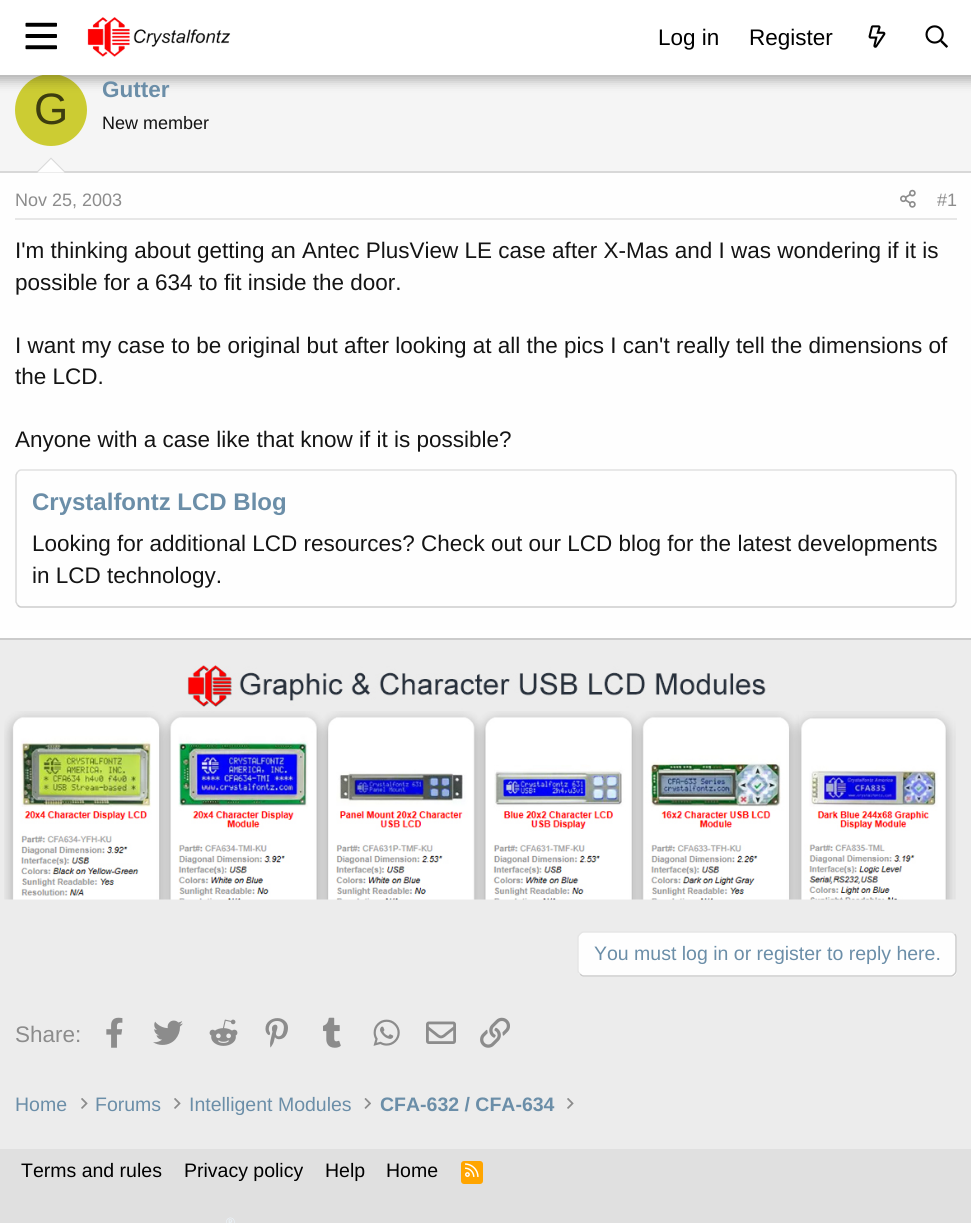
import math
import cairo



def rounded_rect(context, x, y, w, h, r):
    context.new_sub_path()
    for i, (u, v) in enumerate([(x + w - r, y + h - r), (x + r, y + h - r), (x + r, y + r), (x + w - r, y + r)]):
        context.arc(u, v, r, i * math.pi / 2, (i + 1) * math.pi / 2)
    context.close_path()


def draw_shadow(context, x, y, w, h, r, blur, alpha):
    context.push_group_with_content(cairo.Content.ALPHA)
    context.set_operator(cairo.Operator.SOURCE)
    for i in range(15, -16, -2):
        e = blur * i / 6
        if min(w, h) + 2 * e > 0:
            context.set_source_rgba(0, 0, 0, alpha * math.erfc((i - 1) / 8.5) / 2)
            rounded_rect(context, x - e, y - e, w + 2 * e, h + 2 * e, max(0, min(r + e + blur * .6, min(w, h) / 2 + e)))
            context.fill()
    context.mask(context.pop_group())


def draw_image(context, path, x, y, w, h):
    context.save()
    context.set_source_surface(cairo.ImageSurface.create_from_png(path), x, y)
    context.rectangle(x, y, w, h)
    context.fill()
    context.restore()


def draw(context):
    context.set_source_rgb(236 / 255, 236 / 255, 236 / 255)
    context.paint()
    context.set_source_rgb(245 / 255, 245 / 255, 245 / 255)
    context.rectangle(0, 75, 971, 96)
    context.fill()
    context.set_source_rgb(204 / 255, 204 / 255, 51 / 255)
    context.arc(51, 110, 36, 0, 2 * math.pi)
    context.fill()
    context.set_source_rgb(0, 0, 0)
    draw_shadow(context, -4, -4, 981, 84, 0, 6, 0.3)
    context.set_source_rgb(1, 1, 1)
    context.rectangle(0, 0, 971, 75)
    context.fill()
    draw_image(context, "images/1.png", 25, 22, 32, 28)
    draw_image(context, "images/2.png", 87, 17, 144, 40)
    draw_image(context, "images/3.png", 868, 25, 18, 23)
    draw_image(context, "images/4.png", 925, 25, 23, 23)
    context.set_source_rgb(254 / 255, 254 / 255, 254 / 255)
    context.rectangle(0, 173, 971, 465)
    context.fill()
    context.set_source_rgb(203 / 255, 203 / 255, 203 / 255)
    context.rectangle(0, 638, 971, 2)
    context.fill()
    context.set_source_rgb(216 / 255, 216 / 255, 216 / 255)
    context.rectangle(0, 171, 971, 2)
    context.fill()
    context.new_path()
    context.move_to(66, 172.5)
    context.line_to(36, 172.5)
    context.line_to(51, 157.5)
    context.close_path()
    context.fill()
    context.set_source_rgb(254 / 255, 254 / 255, 254 / 255)
    context.new_path()
    context.move_to(64.5, 172.5)
    context.line_to(37.5, 172.5)
    context.line_to(51, 159)
    context.close_path()
    context.fill()
    context.set_source_rgb(231 / 255, 231 / 255, 231 / 255)
    context.rectangle(15, 218, 942, 2)
    context.fill()
    draw_image(context, "images/5.png", 900, 189, 16, 19)
    context.new_path()
    context.move_to(17.5, 472)
    context.curve_to(18.5, 471, 19.5, 470, 21, 470)
    context.line_to(951, 470)
    context.curve_to(952.5, 470, 953.5, 471, 954.5, 472)
    context.set_source_rgb(223 / 255, 223 / 255, 223 / 255)
    context.set_line_width(1.5)
    context.stroke()
    context.new_path()
    context.move_to(954.5, 472)
    context.line_to(956, 475)
    context.line_to(956, 602)
    context.line_to(954.5, 605)
    context.set_source_rgb(216 / 255, 216 / 255, 216 / 255)
    context.stroke()
    context.new_path()
    context.move_to(954.5, 605)
    context.curve_to(953.5, 606, 952.5, 607, 951, 607)
    context.line_to(21, 607)
    context.curve_to(19.5, 607, 18.5, 606, 17.5, 605)
    context.set_source_rgb(203 / 255, 203 / 255, 203 / 255)
    context.stroke()
    context.new_path()
    context.move_to(17.5, 605)
    context.line_to(16, 602)
    context.line_to(16, 475)
    context.line_to(17.5, 472)
    context.set_source_rgb(216 / 255, 216 / 255, 216 / 255)
    context.stroke()
    draw_image(context, "images/6.png", 4, 665, 952, 235)
    context.set_source_rgb(254 / 255, 254 / 255, 254 / 255)
    rounded_rect(context, 578, 932, 379, 45, 6)
    context.fill()
    context.new_path()
    context.move_to(954.5, 934)
    context.curve_to(955.5, 935, 956, 936, 956, 937.5)
    context.line_to(956, 970.5)
    context.curve_to(956, 972, 955.5, 973, 954.5, 974)
    context.curve_to(953.5, 975, 952.5, 976, 951, 976)
    context.line_to(583.5, 976)
    context.curve_to(582, 976, 581, 975, 580, 974)
    context.set_source_rgb(203 / 255, 203 / 255, 203 / 255)
    context.stroke()
    context.new_path()
    context.move_to(580, 974)
    context.curve_to(579, 973, 578, 972, 578, 970.5)
    context.line_to(578, 937.5)
    context.curve_to(578, 936, 579, 935, 580, 934)
    context.curve_to(581, 933, 582, 932, 583.5, 932)
    context.line_to(951, 932)
    context.curve_to(952.5, 932, 953.5, 933, 954.5, 934)
    context.set_source_rgb(229 / 255, 229 / 255, 229 / 255)
    context.stroke()
    draw_image(context, "images/7.png", 106, 1017, 17, 31)
    draw_image(context, "images/8.png", 153, 1020, 30, 25)
    draw_image(context, "images/9.png", 209, 1019, 29, 27)
    draw_image(context, "images/10.png", 265, 1018, 23, 30)
    draw_image(context, "images/11.png", 323, 1017, 18, 31)
    draw_image(context, "images/12.png", 373, 1019, 27, 27)
    draw_image(context, "images/13.png", 426, 1021, 30, 23)
    draw_image(context, "images/14.png", 480, 1017, 30, 31)
    draw_image(context, "images/15.png", 81, 1098, 7, 11)
    draw_image(context, "images/15.png", 174, 1098, 7, 11)
    draw_image(context, "images/16.png", 364, 1098, 7, 11)
    draw_image(context, "images/15.png", 567, 1098, 7, 11)
    context.set_source_rgb(224 / 255, 224 / 255, 224 / 255)
    context.rectangle(0, 1149, 971, 74)
    context.fill()
    context.set_source_rgb(1, 165 / 255, 0)
    rounded_rect(context, 461, 1161, 22, 23, 3)
    context.fill()
    draw_image(context, "images/17.png", 465, 1163, 14, 14)
    context.select_font_face("Liberation Sans")
    context.set_font_size(22.5)
    context.set_source_rgb(0, 0, 0)
    context.move_to(658, 45)
    context.show_text("Log in")
    context.move_to(749, 45)
    context.show_text("Register")
    context.set_font_size(44)
    context.set_source_rgb(61 / 255, 61 / 255, 15 / 255)
    context.move_to(34, 124)
    context.show_text("G")
    context.select_font_face("Liberation Sans", cairo.FontSlant.NORMAL, cairo.FontWeight.BOLD)
    context.set_font_size(22.5)
    context.set_source_rgb(107 / 255, 142 / 255, 168 / 255)
    context.move_to(102, 97)
    context.show_text("Gutter")
    context.select_font_face("Liberation Sans")
    context.set_font_size(18)
    context.set_source_rgb(20 / 255, 20 / 255, 20 / 255)
    context.move_to(102, 129)
    context.show_text("New member")
    context.set_source_rgb(140 / 255, 140 / 255, 140 / 255)
    context.move_to(15, 206)
    context.show_text("Nov 25, 2003")
    context.move_to(937, 206)
    context.show_text("#1")
    context.set_font_size(22.5)
    context.set_source_rgb(20 / 255, 20 / 255, 20 / 255)
    context.move_to(15, 258)
    context.show_text("I'm thinking about getting an Antec PlusView LE case after X-Mas and I was wondering if it is")
    context.move_to(15, 290)
    context.show_text("possible for a 634 to fit inside the door.")
    context.move_to(15, 353)
    context.show_text("I want my case to be original but after looking at all the pics I can't really tell the dimensions of")
    context.move_to(15, 384)
    context.show_text("the LCD.")
    context.move_to(15, 447)
    context.show_text("Anyone with a case like that know if it is possible?")
    context.select_font_face("Liberation Sans", cairo.FontSlant.NORMAL, cairo.FontWeight.BOLD)
    context.set_font_size(24)
    context.set_source_rgb(107 / 255, 142 / 255, 168 / 255)
    context.move_to(32, 510)
    context.show_text("Crystalfontz LCD Blog")
    context.select_font_face("Liberation Sans")
    context.set_font_size(22.5)
    context.set_source_rgb(20 / 255, 20 / 255, 20 / 255)
    context.move_to(32, 551)
    context.show_text("Looking for additional LCD resources? Check out our LCD blog for the latest developments")
    context.move_to(32, 583)
    context.show_text("in LCD technology.")
    context.set_font_size(19.5)
    context.set_source_rgb(107 / 255, 142 / 255, 168 / 255)
    context.move_to(594, 960)
    context.show_text("You must log in or register to reply here.")
    context.set_font_size(22.5)
    context.set_source_rgb(140 / 255, 140 / 255, 140 / 255)
    context.move_to(15, 1042)
    context.show_text("Share:")
    context.set_font_size(19.5)
    context.set_source_rgb(107 / 255, 142 / 255, 168 / 255)
    context.move_to(15, 1111)
    context.show_text("Home")
    context.move_to(95, 1111)
    context.show_text("Forums")
    context.move_to(189, 1111)
    context.show_text("Intelligent Modules")
    context.select_font_face("Liberation Sans", cairo.FontSlant.NORMAL, cairo.FontWeight.BOLD)
    context.move_to(380, 1111)
    context.show_text("CFA-632 / CFA-634")
    context.select_font_face("Liberation Sans")
    context.set_source_rgb(0, 0, 0)
    context.move_to(21, 1177)
    context.show_text("Terms and rules")
    context.move_to(184, 1177)
    context.show_text("Privacy policy")
    context.move_to(325, 1177)
    context.show_text("Help")
    context.move_to(386, 1177)
    context.show_text("Home")
    context.set_font_size(12)
    context.set_source_rgb(237 / 255, 246 / 255, 253 / 255)
    context.move_to(226, 1226)
    context.show_text("®")


surface = cairo.ImageSurface(cairo.Format.RGB24, 971, 1223)
context = cairo.Context(surface)
options = cairo.FontOptions()
options.set_hint_metrics(cairo.HintMetrics.OFF)
options.set_hint_style(cairo.HintStyle.NONE)
context.set_font_options(options)
context.set_miter_limit(4)
draw(context)
surface.write_to_png("out.png")
